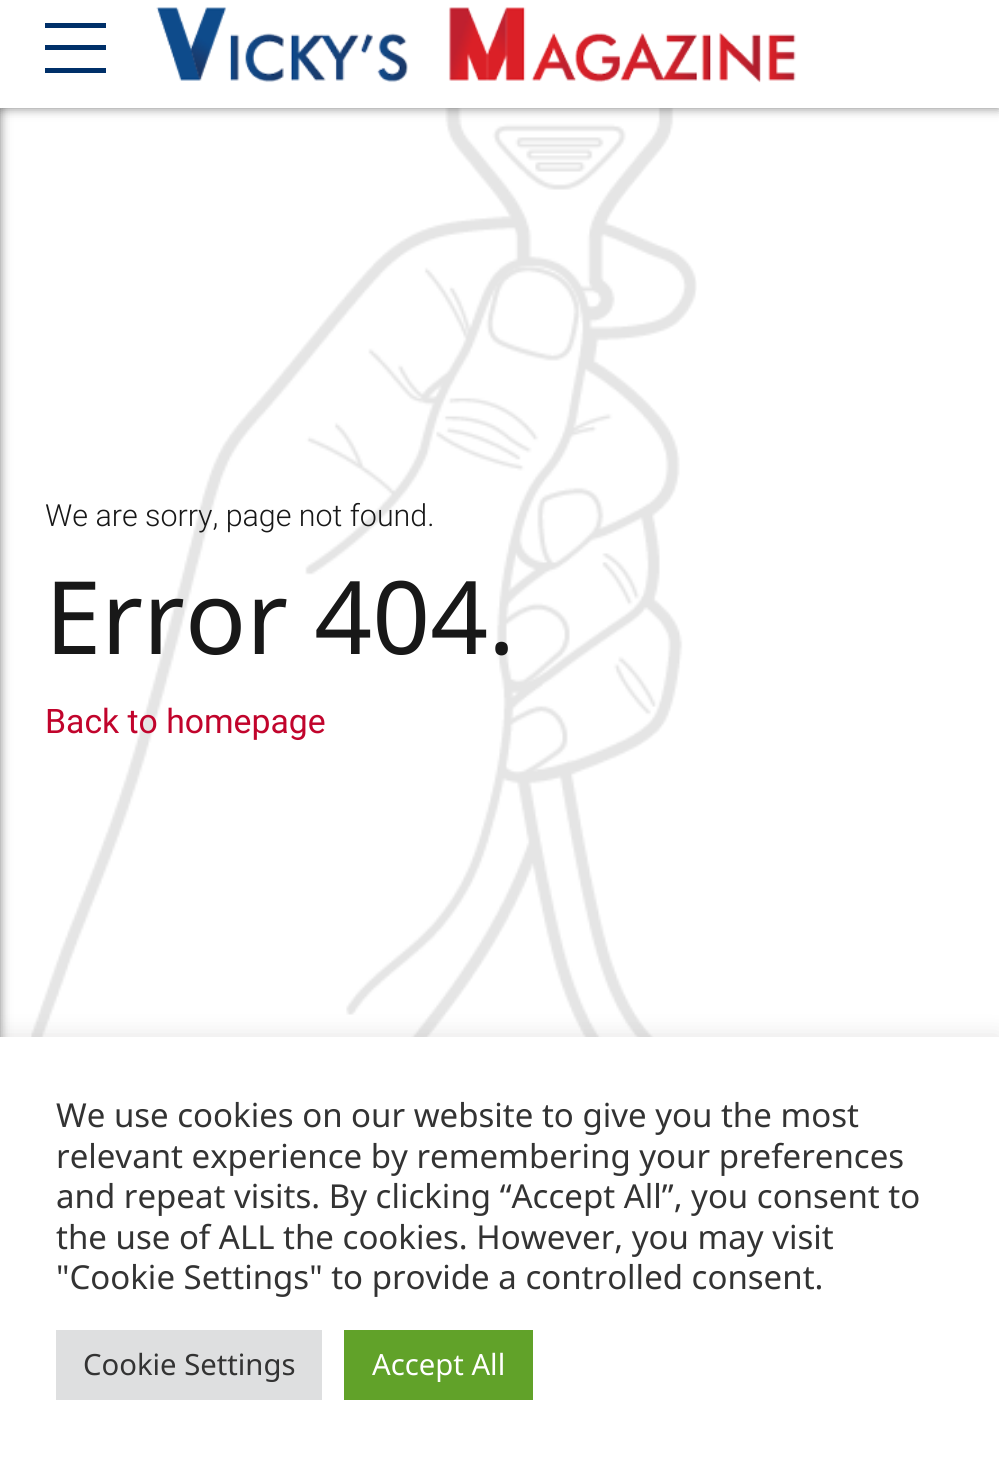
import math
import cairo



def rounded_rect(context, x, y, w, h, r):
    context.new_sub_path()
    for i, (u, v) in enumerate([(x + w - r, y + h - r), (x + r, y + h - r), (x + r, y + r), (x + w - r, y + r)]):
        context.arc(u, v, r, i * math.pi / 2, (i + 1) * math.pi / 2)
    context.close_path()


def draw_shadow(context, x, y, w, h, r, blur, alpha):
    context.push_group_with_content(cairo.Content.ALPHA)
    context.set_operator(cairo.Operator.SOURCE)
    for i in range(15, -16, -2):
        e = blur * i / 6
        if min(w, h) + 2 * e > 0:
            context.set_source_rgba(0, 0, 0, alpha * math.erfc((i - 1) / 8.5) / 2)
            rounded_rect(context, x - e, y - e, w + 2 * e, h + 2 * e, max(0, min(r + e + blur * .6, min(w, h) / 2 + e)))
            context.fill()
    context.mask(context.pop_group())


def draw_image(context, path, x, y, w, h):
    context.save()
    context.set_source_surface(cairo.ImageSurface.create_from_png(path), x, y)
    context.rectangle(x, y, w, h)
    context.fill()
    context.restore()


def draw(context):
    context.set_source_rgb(1, 1, 1)
    context.paint()
    context.set_source_rgb(0, 0, 0)
    draw_shadow(context, -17, 0, 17, 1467, 0, 5.5, 0.5)
    draw_image(context, "images/2.png", 31, 108, 666, 929)
    draw_shadow(context, 0, -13, 999, 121, 0, 5.5, 0.5)
    context.set_source_rgb(1, 1, 1)
    context.rectangle(0, 0, 999, 108)
    context.fill()
    context.set_source_rgb(0, 48 / 255, 105 / 255)
    context.rectangle(45, 23, 61, 5)
    context.fill()
    context.rectangle(45, 45, 61, 5)
    context.fill()
    context.rectangle(45, 68, 61, 5)
    context.fill()
    draw_image(context, "images/1.png", 156, 7, 640, 76)
    context.set_source_rgb(172 / 255, 171 / 255, 171 / 255)
    draw_shadow(context, 0, 1035, 999, 430, 0, 11, 0.3)
    context.set_source_rgb(1, 1, 1)
    context.rectangle(0, 1037, 999, 428)
    context.fill()
    context.set_source_rgb(222 / 255, 223 / 255, 224 / 255)
    context.rectangle(56, 1330, 266, 70)
    context.fill()
    context.set_source_rgb(97 / 255, 162 / 255, 41 / 255)
    context.rectangle(344, 1330, 189, 70)
    context.fill()
    context.select_font_face("Roboto Light")
    context.set_font_size(30.4)
    context.set_source_rgb(24 / 255, 24 / 255, 24 / 255)
    context.move_to(45, 526)
    context.show_text("We are sorry, page not found.")
    context.select_font_face("Noto Sans")
    context.set_font_size(101.25)
    context.move_to(45, 654)
    context.show_text("Error 404.")
    context.select_font_face("Roboto")
    context.set_font_size(33.75)
    context.set_source_rgb(193 / 255, 4 / 255, 44 / 255)
    context.move_to(45, 733)
    context.show_text("Back to homepage")
    context.select_font_face("Noto Sans")
    context.set_font_size(33)
    context.set_source_rgb(51 / 255, 51 / 255, 51 / 255)
    context.move_to(56, 1127)
    context.show_text("We use cookies on our website to give you the most")
    context.move_to(56, 1168)
    context.show_text("relevant experience by remembering your preferences")
    context.move_to(56, 1208)
    context.show_text("and repeat visits. By clicking “Accept All”, you consent to")
    context.move_to(56, 1249)
    context.show_text("the use of ALL the cookies. However, you may visit")
    context.move_to(56, 1289)
    context.show_text("\"Cookie Settings\" to provide a controlled consent.")
    context.set_font_size(29.25)
    context.move_to(83, 1375)
    context.show_text("Cookie Settings")
    context.set_source_rgb(1, 1, 1)
    context.move_to(372, 1375)
    context.show_text("Accept All")


surface = cairo.ImageSurface(cairo.Format.RGB24, 999, 1465)
context = cairo.Context(surface)
options = cairo.FontOptions()
options.set_hint_metrics(cairo.HintMetrics.OFF)
options.set_hint_style(cairo.HintStyle.NONE)
context.set_font_options(options)
context.set_miter_limit(4)
draw(context)
surface.write_to_png("out.png")
